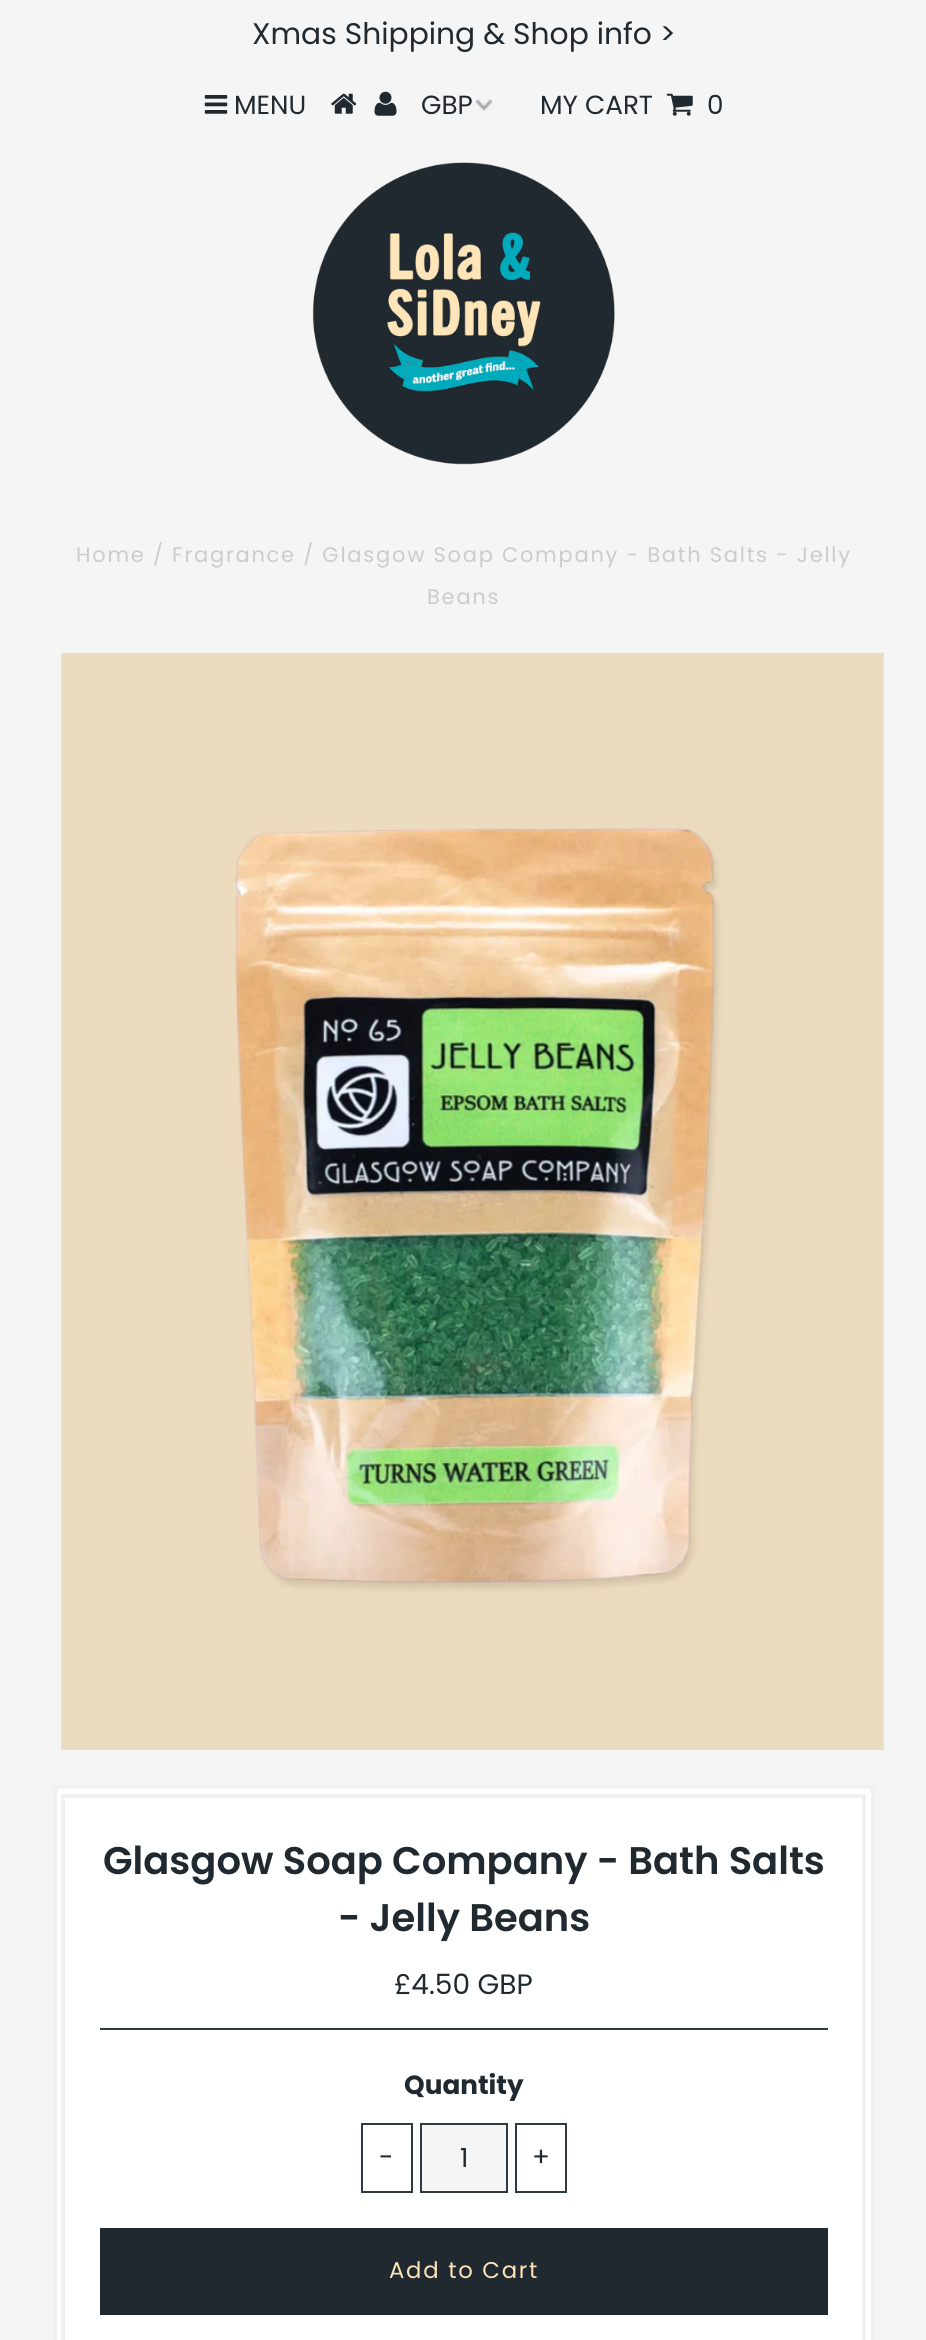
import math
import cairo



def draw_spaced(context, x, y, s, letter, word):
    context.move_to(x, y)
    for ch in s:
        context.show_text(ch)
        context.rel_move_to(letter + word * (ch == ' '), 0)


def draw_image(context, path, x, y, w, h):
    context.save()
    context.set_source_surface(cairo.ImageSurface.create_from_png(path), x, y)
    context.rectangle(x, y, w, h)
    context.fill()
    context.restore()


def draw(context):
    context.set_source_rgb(245 / 255, 245 / 255, 245 / 255)
    context.paint()
    draw_image(context, "images/1.png", 204, 95, 24, 19)
    draw_image(context, "images/2.png", 331, 93, 26, 21)
    draw_image(context, "images/3.png", 374, 91, 23, 25)
    draw_image(context, "images/4.png", 475, 99, 18, 12)
    draw_image(context, "images/5.png", 666, 93, 27, 23)
    draw_image(context, "images/6.png", 312, 162, 303, 303)
    draw_image(context, "images/7.png", 61, 652, 823, 1098)
    context.set_source_rgb(1, 1, 1)
    context.rectangle(55, 1787, 818, 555)
    context.fill_preserve()
    context.set_source_rgb(240 / 255, 240 / 255, 240 / 255)
    context.set_line_width(4)
    context.stroke()
    context.rectangle(63, 1796, 801, 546)
    context.stroke()
    context.set_source_rgb(47 / 255, 59 / 255, 68 / 255)
    context.rectangle(100, 2028, 728, 2)
    context.fill()
    context.rectangle(362, 2124, 50, 68)
    context.set_line_width(2)
    context.stroke()
    context.set_source_rgb(245 / 255, 245 / 255, 245 / 255)
    context.rectangle(421, 2124, 86, 68)
    context.fill_preserve()
    context.set_source_rgb(47 / 255, 59 / 255, 68 / 255)
    context.stroke()
    context.rectangle(516, 2124, 50, 68)
    context.stroke()
    context.set_source_rgb(32 / 255, 41 / 255, 48 / 255)
    context.rectangle(100, 2228, 728, 87)
    context.fill()
    context.select_font_face("Poppins")
    context.set_font_size(29.75)
    context.move_to(252, 44)
    context.show_text("Xmas Shipping & Shop info >")
    context.set_font_size(26.25)
    context.move_to(234, 114)
    context.show_text("MENU")
    context.move_to(421, 114)
    context.show_text("GBP")
    context.move_to(540, 114)
    context.show_text("MY CART")
    context.move_to(707, 114)
    context.show_text("0")
    context.set_font_size(21)
    context.set_source_rgb(204 / 255, 204 / 255, 204 / 255)
    draw_spaced(context, 76, 562, "Home / Fragrance / Glasgow Soap Company - Bath Salts - Jelly", 1.75, 0)
    draw_spaced(context, 427, 604, "Beans", 1.75, 0)
    context.select_font_face("Poppins SemiBold")
    context.set_font_size(38.5)
    context.set_source_rgb(32 / 255, 41 / 255, 48 / 255)
    context.move_to(103, 1874)
    context.show_text("Glasgow Soap Company - Bath Salts")
    context.move_to(338, 1931)
    context.show_text("- Jelly Beans")
    context.select_font_face("Poppins")
    context.set_font_size(28)
    context.move_to(394, 1994)
    context.show_text("£4.50 GBP")
    context.select_font_face("Poppins", cairo.FontSlant.NORMAL, cairo.FontWeight.BOLD)
    context.set_font_size(26.25)
    context.move_to(404, 2094)
    context.show_text("Quantity")
    context.select_font_face("Poppins")
    context.move_to(379, 2166)
    context.show_text("-")
    context.move_to(460, 2167)
    context.show_text("1")
    context.move_to(532, 2166)
    context.show_text("+")
    context.set_font_size(22.75)
    context.set_source_rgb(1, 228 / 255, 185 / 255)
    draw_spaced(context, 389, 2278, "Add to Cart", 1.75, 0)


surface = cairo.ImageSurface(cairo.Format.RGB24, 926, 2340)
context = cairo.Context(surface)
options = cairo.FontOptions()
options.set_hint_metrics(cairo.HintMetrics.OFF)
options.set_hint_style(cairo.HintStyle.NONE)
context.set_font_options(options)
context.set_miter_limit(4)
draw(context)
surface.write_to_png("out.png")
